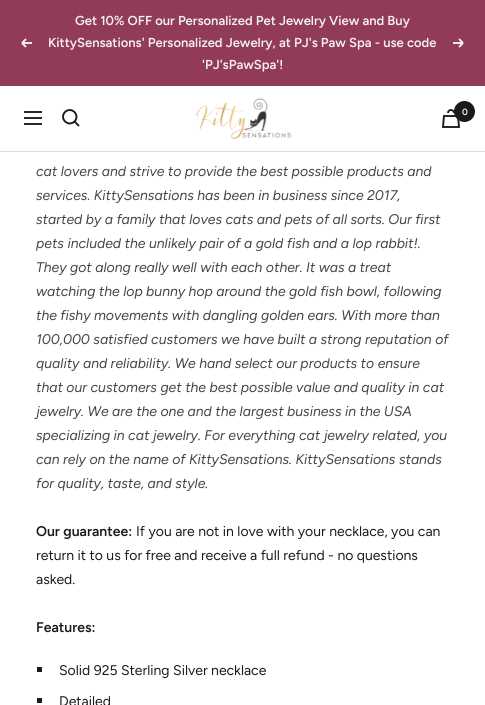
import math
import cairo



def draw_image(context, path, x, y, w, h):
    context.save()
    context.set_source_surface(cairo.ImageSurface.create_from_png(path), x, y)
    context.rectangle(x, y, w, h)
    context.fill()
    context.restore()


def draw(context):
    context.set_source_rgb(1, 1, 1)
    context.paint()
    context.set_source_rgb(145 / 255, 59 / 255, 89 / 255)
    context.rectangle(0, 0, 485, 86)
    context.fill()
    context.new_path()
    context.move_to(32, 43)
    context.line_to(22, 43)
    context.move_to(22, 43)
    context.line_to(26, 47)
    context.move_to(22, 43)
    context.line_to(26, 39)
    context.set_source_rgb(245 / 255, 241 / 255, 236 / 255)
    context.set_line_width(1.9)
    context.stroke()
    context.new_path()
    context.move_to(453, 43)
    context.line_to(463, 43)
    context.move_to(463, 43)
    context.line_to(459, 47)
    context.move_to(463, 43)
    context.line_to(459, 39)
    context.stroke()
    context.set_source_rgb(221 / 255, 221 / 255, 221 / 255)
    context.rectangle(0, 151, 485, 1)
    context.fill()
    context.new_path()
    context.move_to(24, 112)
    context.line_to(42, 112)
    context.move_to(24, 124)
    context.line_to(42, 124)
    context.close_path()
    context.move_to(24, 118)
    context.line_to(42, 118)
    context.close_path()
    context.move_to(74.5, 121.5)
    context.curve_to(80.5, 115, 71.5, 106, 65, 112)
    context.curve_to(59, 118.5, 68, 127.5, 74.5, 121.5)
    context.close_path()
    context.move_to(74.5, 121.5)
    context.line_to(79, 126)
    context.set_source_rgb(26 / 255, 26 / 255, 26 / 255)
    context.stroke()
    draw_image(context, "images/1.png", 196, 98, 96, 41)
    context.new_path()
    context.move_to(444, 116)
    context.line_to(458, 116)
    context.line_to(459, 127)
    context.line_to(443, 127)
    context.close_path()
    context.move_to(454, 113)
    context.curve_to(454, 109, 448, 109, 448, 113)
    context.stroke()
    context.arc(464.5, 111.5, 10.5, 0, 2 * math.pi)
    context.fill()
    context.rectangle(37, 667, 5, 5)
    context.fill()
    context.rectangle(37, 698, 5, 5)
    context.fill()
    context.select_font_face("Figtree SemiBold")
    context.set_font_size(13)
    context.set_source_rgb(245 / 255, 241 / 255, 236 / 255)
    context.move_to(75, 25)
    context.show_text("Get 10% OFF our Personalized Pet Jewelry View and Buy")
    context.move_to(48, 47)
    context.show_text("KittySensations' Personalized Jewelry, at PJ's Paw Spa - use code")
    context.move_to(202, 69)
    context.show_text("'PJ'sPawSpa'!")
    context.set_font_size(9)
    context.set_source_rgb(1, 1, 1)
    context.move_to(462, 115)
    context.show_text("0")
    context.select_font_face("Figtree", cairo.FontSlant.ITALIC)
    context.set_font_size(14)
    context.set_source_rgb(68 / 255, 68 / 255, 68 / 255)
    context.move_to(36, 176)
    context.show_text("cat lovers and strive to provide the best possible products and")
    context.move_to(36, 200)
    context.show_text("services. KittySensations has been in business since 2017,")
    context.move_to(36, 224)
    context.show_text("started by a family that loves cats and pets of all sorts. Our first")
    context.move_to(36, 248)
    context.show_text("pets included the unlikely pair of a gold fish and a lop rabbit!.")
    context.move_to(36, 272)
    context.show_text("They got along really well with each other. It was a treat")
    context.move_to(36, 296)
    context.show_text("watching the lop bunny hop around the gold fish bowl, following")
    context.move_to(36, 320)
    context.show_text("the fishy movements with dangling golden ears. With more than")
    context.move_to(36, 344)
    context.show_text("100,000 satisfied customers we have built a strong reputation of")
    context.move_to(36, 368)
    context.show_text("quality and reliability. We hand select our products to ensure")
    context.move_to(36, 392)
    context.show_text("that our customers get the best possible value and quality in cat")
    context.move_to(36, 416)
    context.show_text("jewelry. We are the one and the largest business in the USA")
    context.move_to(36, 440)
    context.show_text("specializing in cat jewelry. For everything cat jewelry related, you")
    context.move_to(36, 464)
    context.show_text("can rely on the name of KittySensations. KittySensations stands")
    context.move_to(36, 488)
    context.show_text("for quality, taste, and style.")
    context.select_font_face("Figtree SemiBold")
    context.set_source_rgb(26 / 255, 26 / 255, 26 / 255)
    context.move_to(36, 536)
    context.show_text("Our guarantee:")
    context.select_font_face("Figtree")
    context.move_to(136, 536)
    context.show_text("If you are not in love with your necklace, you can")
    context.move_to(36, 560)
    context.show_text("return it to us for free and receive a full refund - no questions")
    context.move_to(36, 584)
    context.show_text("asked.")
    context.select_font_face("Figtree SemiBold")
    context.move_to(36, 632)
    context.show_text("Features:")
    context.select_font_face("Figtree")
    context.move_to(59, 675)
    context.show_text("Solid 925 Sterling Silver necklace")
    context.move_to(59, 706)
    context.show_text("Detailed")


surface = cairo.ImageSurface(cairo.Format.RGB24, 485, 705)
context = cairo.Context(surface)
options = cairo.FontOptions()
options.set_hint_metrics(cairo.HintMetrics.OFF)
options.set_hint_style(cairo.HintStyle.NONE)
context.set_font_options(options)
context.set_miter_limit(4)
draw(context)
surface.write_to_png("out.png")
